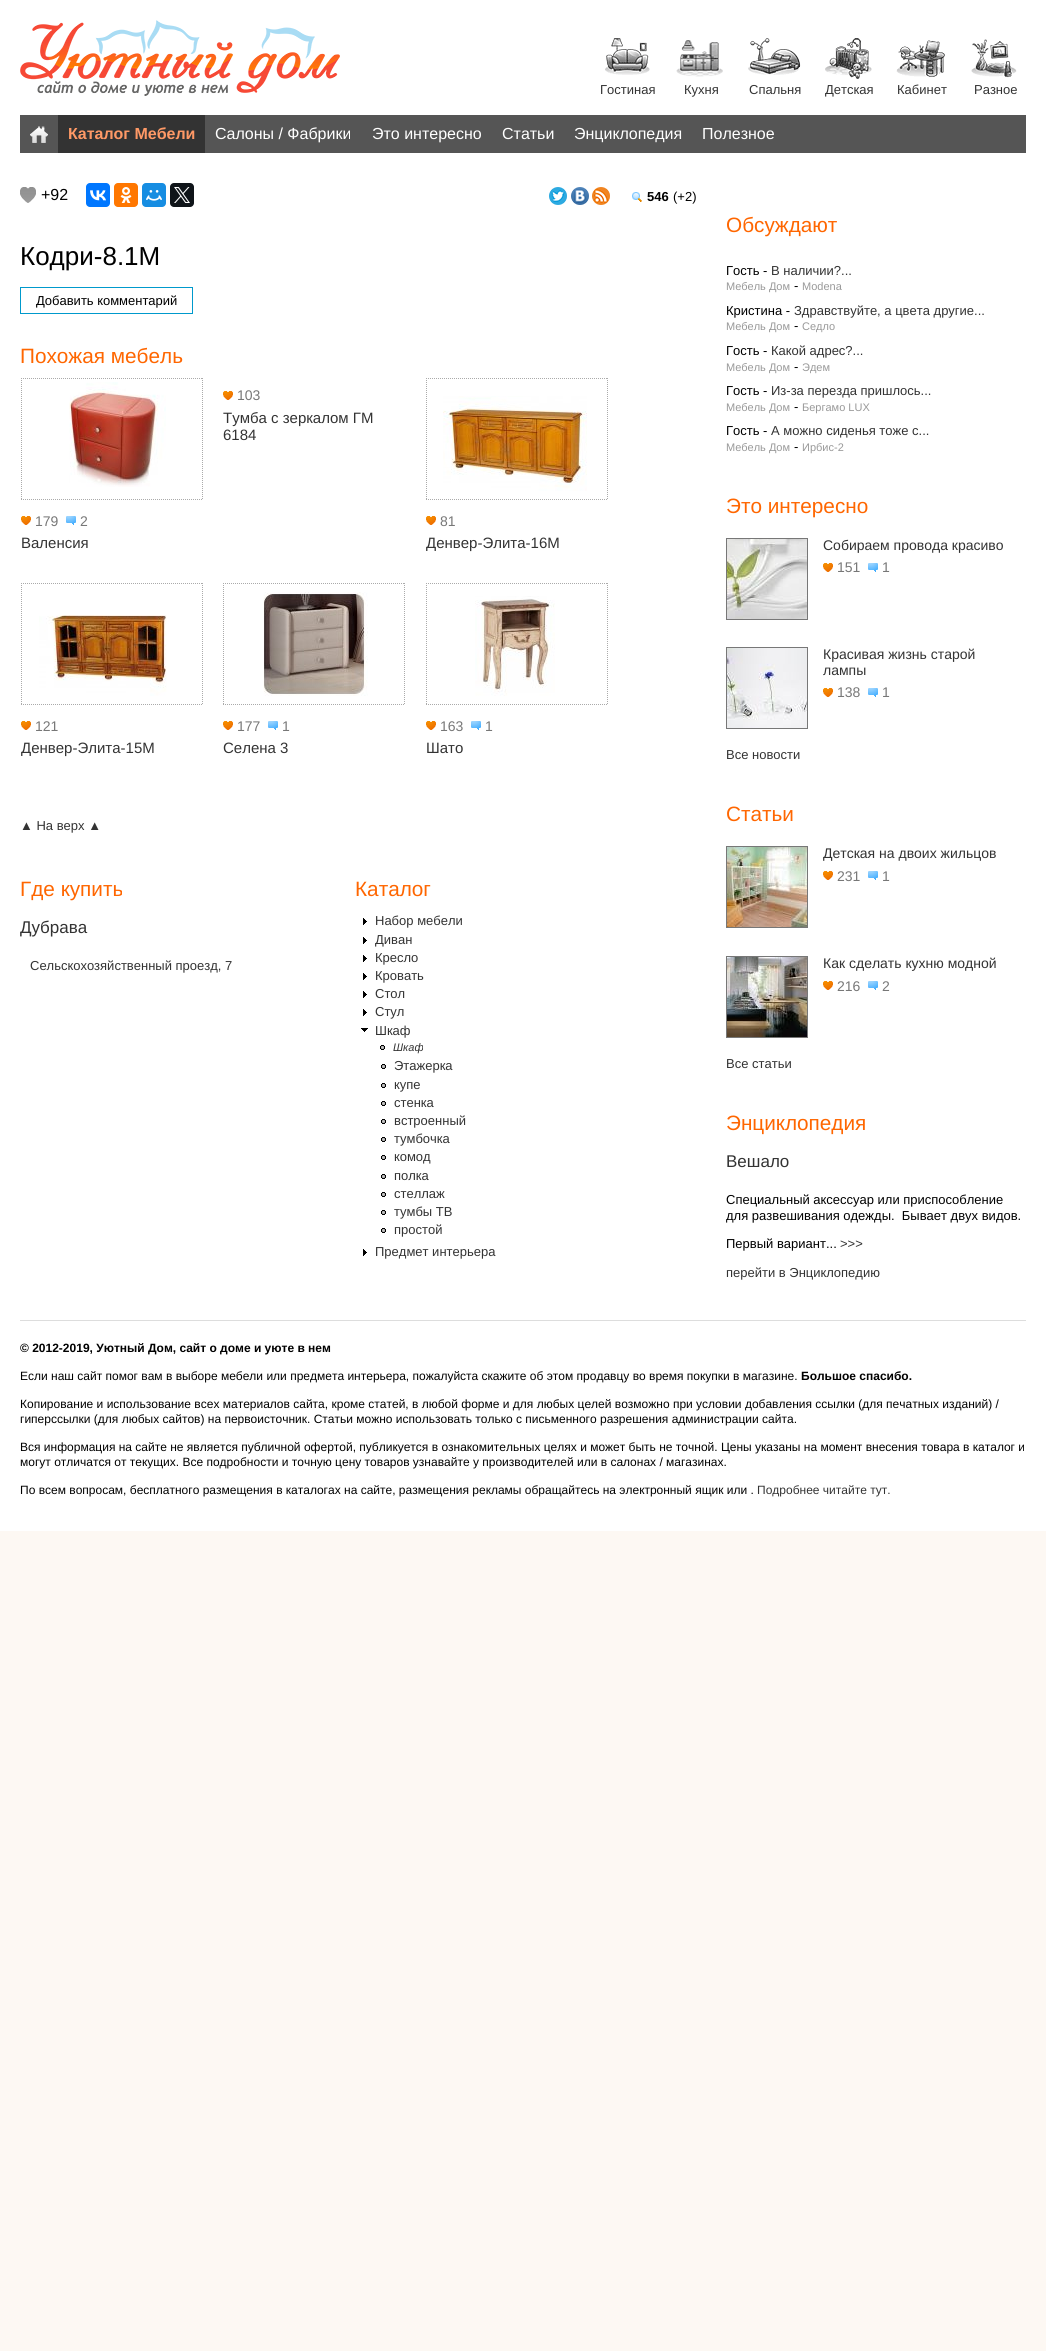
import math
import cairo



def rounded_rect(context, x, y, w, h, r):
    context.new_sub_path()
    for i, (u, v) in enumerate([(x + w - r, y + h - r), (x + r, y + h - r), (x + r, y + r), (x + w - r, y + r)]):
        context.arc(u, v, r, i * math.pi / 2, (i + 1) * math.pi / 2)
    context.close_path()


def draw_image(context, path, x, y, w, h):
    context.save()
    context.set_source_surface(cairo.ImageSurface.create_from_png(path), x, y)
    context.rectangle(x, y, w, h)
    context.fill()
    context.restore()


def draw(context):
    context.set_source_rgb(253 / 255, 248 / 255, 243 / 255)
    context.paint()
    context.set_source_rgb(1, 1, 1)
    context.rectangle(0, 0, 1046, 1531)
    context.fill()
    draw_image(context, "images/1.png", 20, 20, 320, 76)
    draw_image(context, "images/2.png", 605, 38, 45, 37)
    draw_image(context, "images/3.png", 676, 40, 47, 37)
    draw_image(context, "images/4.png", 748, 38, 53, 37)
    draw_image(context, "images/5.png", 825, 38, 47, 41)
    draw_image(context, "images/6.png", 896, 40, 49, 37)
    draw_image(context, "images/7.png", 971, 39, 46, 39)
    context.set_source_rgb(85 / 255, 85 / 255, 85 / 255)
    context.rectangle(20, 115, 1006, 38)
    context.fill()
    draw_image(context, "images/8.png", 30, 126, 18, 17)
    context.set_source_rgb(51 / 255, 51 / 255, 51 / 255)
    context.rectangle(58, 115, 147, 38)
    context.fill()
    draw_image(context, "images/9.png", 20, 187, 16, 16)
    context.set_source_rgb(0, 119 / 255, 1)
    rounded_rect(context, 86, 183, 24, 24, 4)
    context.fill()
    draw_image(context, "images/10.png", 90, 190, 16, 11)
    context.set_source_rgb(1, 119 / 255, 0)
    rounded_rect(context, 114, 183, 24, 24, 4)
    context.fill()
    draw_image(context, "images/11.png", 120, 187, 12, 16)
    context.set_source_rgb(22 / 255, 141 / 255, 226 / 255)
    rounded_rect(context, 142, 183, 24, 24, 4)
    context.fill()
    draw_image(context, "images/12.png", 146, 190, 16, 11)
    context.set_source_rgb(15 / 255, 20 / 255, 25 / 255)
    rounded_rect(context, 170, 183, 24, 24, 4)
    context.fill()
    draw_image(context, "images/13.png", 174, 187, 16, 16)
    draw_image(context, "images/14.png", 549, 187, 18, 18)
    draw_image(context, "images/15.png", 571, 187, 18, 18)
    draw_image(context, "images/16.png", 592, 187, 18, 18)
    draw_image(context, "images/17.png", 632, 192, 10, 10)
    context.rectangle(20.5, 287.5, 172, 26)
    context.set_source_rgb(0, 153 / 255, 204 / 255)
    context.set_line_width(1)
    context.stroke()
    draw_image(context, "images/18.png", 223, 391, 10, 9)
    context.new_path()
    context.move_to(21, 378.5)
    context.line_to(203, 378.5)
    context.set_source_rgb(170 / 255, 170 / 255, 170 / 255)
    context.set_dash([1, 1])
    context.stroke()
    context.new_path()
    context.move_to(21.5, 378)
    context.line_to(21.5, 500)
    context.stroke()
    draw_image(context, "images/19.png", 69, 382, 97, 105)
    context.new_path()
    context.move_to(202.5, 378)
    context.line_to(202.5, 500)
    context.stroke()
    context.new_path()
    context.move_to(21, 499.5)
    context.line_to(203, 499.5)
    context.stroke()
    draw_image(context, "images/18.png", 21, 516, 10, 9)
    draw_image(context, "images/20.png", 66, 516, 10, 9)
    context.new_path()
    context.move_to(426, 378.5)
    context.line_to(608, 378.5)
    context.stroke()
    context.new_path()
    context.move_to(426.5, 378)
    context.line_to(426.5, 500)
    context.stroke()
    draw_image(context, "images/21.png", 443, 396, 144, 95)
    context.new_path()
    context.move_to(607.5, 378)
    context.line_to(607.5, 500)
    context.stroke()
    context.new_path()
    context.move_to(426, 499.5)
    context.line_to(608, 499.5)
    context.stroke()
    draw_image(context, "images/18.png", 426, 516, 10, 9)
    context.new_path()
    context.move_to(21, 583.5)
    context.line_to(203, 583.5)
    context.stroke()
    context.new_path()
    context.move_to(21.5, 583)
    context.line_to(21.5, 705)
    context.stroke()
    draw_image(context, "images/22.png", 39, 615, 128, 81)
    context.new_path()
    context.move_to(202.5, 583)
    context.line_to(202.5, 705)
    context.stroke()
    context.new_path()
    context.move_to(21, 704.5)
    context.line_to(203, 704.5)
    context.stroke()
    draw_image(context, "images/18.png", 21, 721, 10, 9)
    context.new_path()
    context.move_to(223, 583.5)
    context.line_to(405, 583.5)
    context.stroke()
    context.new_path()
    context.move_to(223.5, 583)
    context.line_to(223.5, 705)
    context.stroke()
    draw_image(context, "images/23.png", 263, 592, 105, 104)
    context.new_path()
    context.move_to(404.5, 583)
    context.line_to(404.5, 705)
    context.stroke()
    context.new_path()
    context.move_to(223, 704.5)
    context.line_to(405, 704.5)
    context.stroke()
    draw_image(context, "images/18.png", 223, 721, 10, 9)
    draw_image(context, "images/20.png", 268, 721, 10, 9)
    context.new_path()
    context.move_to(426, 583.5)
    context.line_to(608, 583.5)
    context.stroke()
    context.new_path()
    context.move_to(426.5, 583)
    context.line_to(426.5, 705)
    context.stroke()
    draw_image(context, "images/24.png", 475, 596, 80, 100)
    context.new_path()
    context.move_to(607.5, 583)
    context.line_to(607.5, 705)
    context.stroke()
    context.new_path()
    context.move_to(426, 704.5)
    context.line_to(608, 704.5)
    context.stroke()
    draw_image(context, "images/18.png", 426, 721, 10, 9)
    draw_image(context, "images/20.png", 471, 721, 10, 9)
    context.rectangle(726.5, 538.5, 81, 81)
    context.set_source_rgb(119 / 255, 119 / 255, 119 / 255)
    context.set_dash([])
    context.stroke()
    draw_image(context, "images/25.png", 727, 539, 80, 80)
    draw_image(context, "images/18.png", 823, 563, 10, 9)
    draw_image(context, "images/20.png", 868, 563, 10, 9)
    context.rectangle(726.5, 647.5, 81, 81)
    context.stroke()
    draw_image(context, "images/26.png", 727, 648, 80, 80)
    draw_image(context, "images/18.png", 823, 688, 10, 9)
    draw_image(context, "images/20.png", 868, 688, 10, 9)
    context.rectangle(726.5, 846.5, 81, 81)
    context.stroke()
    draw_image(context, "images/27.png", 727, 847, 80, 80)
    draw_image(context, "images/18.png", 823, 871, 10, 9)
    draw_image(context, "images/20.png", 868, 871, 10, 9)
    context.rectangle(726.5, 956.5, 81, 81)
    context.stroke()
    draw_image(context, "images/28.png", 727, 957, 80, 80)
    draw_image(context, "images/18.png", 823, 981, 10, 9)
    draw_image(context, "images/20.png", 868, 981, 10, 9)
    draw_image(context, "images/29.png", 363, 918, 4, 7)
    draw_image(context, "images/29.png", 363, 937, 4, 7)
    draw_image(context, "images/29.png", 363, 955, 4, 7)
    draw_image(context, "images/29.png", 363, 973, 4, 7)
    draw_image(context, "images/29.png", 363, 991, 4, 7)
    draw_image(context, "images/29.png", 363, 1009, 4, 7)
    draw_image(context, "images/30.png", 361, 1028, 7, 4)
    draw_image(context, "images/31.png", 380, 1045, 5, 5)
    draw_image(context, "images/31.png", 381, 1064, 5, 5)
    draw_image(context, "images/31.png", 381, 1083, 5, 5)
    draw_image(context, "images/31.png", 381, 1101, 5, 5)
    draw_image(context, "images/31.png", 381, 1119, 5, 5)
    draw_image(context, "images/31.png", 381, 1137, 5, 5)
    draw_image(context, "images/31.png", 381, 1155, 5, 5)
    draw_image(context, "images/31.png", 381, 1174, 5, 5)
    draw_image(context, "images/31.png", 381, 1192, 5, 5)
    draw_image(context, "images/31.png", 381, 1210, 5, 5)
    draw_image(context, "images/31.png", 381, 1228, 5, 5)
    draw_image(context, "images/29.png", 363, 1249, 4, 7)
    context.set_source_rgb(221 / 255, 221 / 255, 221 / 255)
    context.rectangle(20, 1320, 1006, 1)
    context.fill()
    context.select_font_face("Liberation Sans")
    context.set_font_size(13)
    context.set_source_rgb(51 / 255, 51 / 255, 51 / 255)
    context.move_to(600, 94)
    context.show_text("Гостиная")
    context.move_to(684, 94)
    context.show_text("Кухня")
    context.move_to(749, 94)
    context.show_text("Спальня")
    context.move_to(825, 94)
    context.show_text("Детская")
    context.move_to(897, 94)
    context.show_text("Кабинет")
    context.move_to(974, 94)
    context.show_text("Разное")
    context.select_font_face("Liberation Sans", cairo.FontSlant.NORMAL, cairo.FontWeight.BOLD)
    context.set_font_size(16)
    context.set_source_rgb(1, 153 / 255, 102 / 255)
    context.move_to(68, 139)
    context.show_text("Каталог Мебели")
    context.select_font_face("Liberation Sans")
    context.set_source_rgb(1, 1, 1)
    context.move_to(215, 139)
    context.show_text("Салоны / Фабрики")
    context.move_to(372, 139)
    context.show_text("Это интересно")
    context.move_to(502, 139)
    context.show_text("Статьи")
    context.move_to(574, 139)
    context.show_text("Энциклопедия")
    context.move_to(702, 139)
    context.show_text("Полезное")
    context.set_source_rgb(0, 0, 0)
    context.move_to(41, 200)
    context.show_text("+92")
    context.select_font_face("Liberation Sans", cairo.FontSlant.NORMAL, cairo.FontWeight.BOLD)
    context.set_font_size(13)
    context.move_to(647, 201)
    context.show_text("546")
    context.select_font_face("Liberation Sans")
    context.move_to(673, 201)
    context.show_text("(+2)")
    context.set_font_size(26)
    context.move_to(20, 265)
    context.show_text("Кодри-8.1М")
    context.set_font_size(13)
    context.move_to(36, 305)
    context.show_text("Добавить комментарий")
    context.set_font_size(20.75)
    context.set_source_rgb(1, 102 / 255, 0)
    context.move_to(20, 363)
    context.show_text("Похожая мебель")
    context.set_font_size(14)
    context.set_source_rgb(119 / 255, 119 / 255, 119 / 255)
    context.move_to(237, 400)
    context.show_text("103")
    context.set_font_size(15)
    context.set_source_rgb(51 / 255, 51 / 255, 51 / 255)
    context.move_to(223, 423)
    context.show_text("Тумба с зеркалом ГМ")
    context.move_to(223, 440)
    context.show_text("6184")
    context.set_font_size(14)
    context.set_source_rgb(119 / 255, 119 / 255, 119 / 255)
    context.move_to(35, 526)
    context.show_text("179")
    context.move_to(80, 526)
    context.show_text("2")
    context.set_font_size(15)
    context.set_source_rgb(51 / 255, 51 / 255, 51 / 255)
    context.move_to(21, 548)
    context.show_text("Валенсия")
    context.set_font_size(14)
    context.set_source_rgb(119 / 255, 119 / 255, 119 / 255)
    context.move_to(440, 526)
    context.show_text("81")
    context.set_font_size(15)
    context.set_source_rgb(51 / 255, 51 / 255, 51 / 255)
    context.move_to(426, 548)
    context.show_text("Денвер-Элита-16М")
    context.set_font_size(14)
    context.set_source_rgb(119 / 255, 119 / 255, 119 / 255)
    context.move_to(35, 731)
    context.show_text("121")
    context.set_font_size(15)
    context.set_source_rgb(51 / 255, 51 / 255, 51 / 255)
    context.move_to(21, 753)
    context.show_text("Денвер-Элита-15М")
    context.set_font_size(14)
    context.set_source_rgb(119 / 255, 119 / 255, 119 / 255)
    context.move_to(237, 731)
    context.show_text("177")
    context.move_to(282, 731)
    context.show_text("1")
    context.set_font_size(15)
    context.set_source_rgb(51 / 255, 51 / 255, 51 / 255)
    context.move_to(223, 753)
    context.show_text("Селена 3")
    context.set_font_size(14)
    context.set_source_rgb(119 / 255, 119 / 255, 119 / 255)
    context.move_to(440, 731)
    context.show_text("163")
    context.move_to(485, 731)
    context.show_text("1")
    context.set_font_size(15)
    context.set_source_rgb(51 / 255, 51 / 255, 51 / 255)
    context.move_to(426, 753)
    context.show_text("Шато")
    context.set_font_size(13)
    context.move_to(20, 830)
    context.show_text("▲ На верх ▲")
    context.set_font_size(20.75)
    context.set_source_rgb(1, 102 / 255, 0)
    context.move_to(726, 232)
    context.show_text("Обсуждают")
    context.set_font_size(13)
    context.set_source_rgb(0, 0, 0)
    context.move_to(726, 275)
    context.show_text("Гость -")
    context.set_source_rgb(51 / 255, 51 / 255, 51 / 255)
    context.move_to(771, 275)
    context.show_text("В наличии?...")
    context.set_font_size(11)
    context.set_source_rgb(153 / 255, 153 / 255, 153 / 255)
    context.move_to(726, 290)
    context.show_text("Мебель Дом")
    context.set_font_size(13)
    context.set_source_rgb(0, 0, 0)
    context.move_to(794, 290)
    context.show_text("-")
    context.set_font_size(11)
    context.set_source_rgb(153 / 255, 153 / 255, 153 / 255)
    context.move_to(802, 290)
    context.show_text("Modena")
    context.set_font_size(13)
    context.set_source_rgb(0, 0, 0)
    context.move_to(726, 315)
    context.show_text("Кристина -")
    context.set_source_rgb(51 / 255, 51 / 255, 51 / 255)
    context.move_to(794, 315)
    context.show_text("Здравствуйте, а цвета другие...")
    context.set_font_size(11)
    context.set_source_rgb(153 / 255, 153 / 255, 153 / 255)
    context.move_to(726, 330)
    context.show_text("Мебель Дом")
    context.set_font_size(13)
    context.set_source_rgb(0, 0, 0)
    context.move_to(794, 330)
    context.show_text("-")
    context.set_font_size(11)
    context.set_source_rgb(153 / 255, 153 / 255, 153 / 255)
    context.move_to(802, 330)
    context.show_text("Седло")
    context.set_font_size(13)
    context.set_source_rgb(0, 0, 0)
    context.move_to(726, 355)
    context.show_text("Гость -")
    context.set_source_rgb(51 / 255, 51 / 255, 51 / 255)
    context.move_to(771, 355)
    context.show_text("Какой адрес?...")
    context.set_font_size(11)
    context.set_source_rgb(153 / 255, 153 / 255, 153 / 255)
    context.move_to(726, 371)
    context.show_text("Мебель Дом")
    context.set_font_size(13)
    context.set_source_rgb(0, 0, 0)
    context.move_to(794, 371)
    context.show_text("-")
    context.set_font_size(11)
    context.set_source_rgb(153 / 255, 153 / 255, 153 / 255)
    context.move_to(802, 371)
    context.show_text("Эдем")
    context.set_font_size(13)
    context.set_source_rgb(0, 0, 0)
    context.move_to(726, 395)
    context.show_text("Гость -")
    context.set_source_rgb(51 / 255, 51 / 255, 51 / 255)
    context.move_to(771, 395)
    context.show_text("Из-за перезда пришлось...")
    context.set_font_size(11)
    context.set_source_rgb(153 / 255, 153 / 255, 153 / 255)
    context.move_to(726, 411)
    context.show_text("Мебель Дом")
    context.set_font_size(13)
    context.set_source_rgb(0, 0, 0)
    context.move_to(794, 411)
    context.show_text("-")
    context.set_font_size(11)
    context.set_source_rgb(153 / 255, 153 / 255, 153 / 255)
    context.move_to(802, 411)
    context.show_text("Бергамо LUX")
    context.set_font_size(13)
    context.set_source_rgb(0, 0, 0)
    context.move_to(726, 435)
    context.show_text("Гость -")
    context.set_source_rgb(51 / 255, 51 / 255, 51 / 255)
    context.move_to(771, 435)
    context.show_text("А можно сиденья тоже с...")
    context.set_font_size(11)
    context.set_source_rgb(153 / 255, 153 / 255, 153 / 255)
    context.move_to(726, 451)
    context.show_text("Мебель Дом")
    context.set_font_size(13)
    context.set_source_rgb(0, 0, 0)
    context.move_to(794, 451)
    context.show_text("-")
    context.set_font_size(11)
    context.set_source_rgb(153 / 255, 153 / 255, 153 / 255)
    context.move_to(802, 451)
    context.show_text("Ирбис-2")
    context.set_font_size(20.75)
    context.set_source_rgb(1, 102 / 255, 0)
    context.move_to(726, 513)
    context.show_text("Это интересно")
    context.set_font_size(14)
    context.set_source_rgb(51 / 255, 51 / 255, 51 / 255)
    context.move_to(823, 550)
    context.show_text("Собираем провода красиво")
    context.set_source_rgb(119 / 255, 119 / 255, 119 / 255)
    context.move_to(837, 572)
    context.show_text("151")
    context.move_to(882, 572)
    context.show_text("1")
    context.set_source_rgb(51 / 255, 51 / 255, 51 / 255)
    context.move_to(823, 659)
    context.show_text("Красивая жизнь старой")
    context.move_to(823, 675)
    context.show_text("лампы")
    context.set_source_rgb(119 / 255, 119 / 255, 119 / 255)
    context.move_to(837, 697)
    context.show_text("138")
    context.move_to(882, 697)
    context.show_text("1")
    context.set_font_size(13)
    context.set_source_rgb(51 / 255, 51 / 255, 51 / 255)
    context.move_to(726, 759)
    context.show_text("Все новости")
    context.set_font_size(20.75)
    context.set_source_rgb(1, 102 / 255, 0)
    context.move_to(726, 821)
    context.show_text("Статьи")
    context.set_font_size(14)
    context.set_source_rgb(51 / 255, 51 / 255, 51 / 255)
    context.move_to(823, 858)
    context.show_text("Детская на двоих жильцов")
    context.set_source_rgb(119 / 255, 119 / 255, 119 / 255)
    context.move_to(837, 881)
    context.show_text("231")
    context.move_to(882, 881)
    context.show_text("1")
    context.set_source_rgb(51 / 255, 51 / 255, 51 / 255)
    context.move_to(823, 968)
    context.show_text("Как сделать кухню модной")
    context.set_source_rgb(119 / 255, 119 / 255, 119 / 255)
    context.move_to(837, 991)
    context.show_text("216")
    context.move_to(882, 991)
    context.show_text("2")
    context.set_font_size(13)
    context.set_source_rgb(51 / 255, 51 / 255, 51 / 255)
    context.move_to(726, 1068)
    context.show_text("Все статьи")
    context.set_font_size(20.75)
    context.set_source_rgb(1, 102 / 255, 0)
    context.move_to(726, 1130)
    context.show_text("Энциклопедия")
    context.set_font_size(17)
    context.set_source_rgb(51 / 255, 51 / 255, 51 / 255)
    context.move_to(726, 1167)
    context.show_text("Вешало")
    context.set_font_size(13)
    context.set_source_rgb(0, 0, 0)
    context.move_to(726, 1204)
    context.show_text("Специальный аксессуар или приспособление")
    context.move_to(726, 1220)
    context.show_text("для развешивания одежды.  Бывает двух видов.")
    context.move_to(726, 1248)
    context.show_text("Первый вариант...")
    context.set_source_rgb(51 / 255, 51 / 255, 51 / 255)
    context.move_to(840, 1248)
    context.show_text(">>>")
    context.move_to(726, 1277)
    context.show_text("перейти в Энциклопедию")
    context.set_font_size(20.75)
    context.set_source_rgb(1, 102 / 255, 0)
    context.move_to(20, 896)
    context.show_text("Где купить")
    context.set_font_size(17)
    context.set_source_rgb(51 / 255, 51 / 255, 51 / 255)
    context.move_to(20, 933)
    context.show_text("Дубрава")
    context.set_font_size(13)
    context.move_to(30, 970)
    context.show_text("Сельскохозяйственный проезд, 7")
    context.set_font_size(20.75)
    context.set_source_rgb(1, 102 / 255, 0)
    context.move_to(355, 896)
    context.show_text("Каталог")
    context.set_font_size(13)
    context.set_source_rgb(51 / 255, 51 / 255, 51 / 255)
    context.move_to(375, 925)
    context.show_text("Набор мебели")
    context.move_to(375, 944)
    context.show_text("Диван")
    context.move_to(375, 962)
    context.show_text("Кресло")
    context.move_to(375, 980)
    context.show_text("Кровать")
    context.move_to(375, 998)
    context.show_text("Стол")
    context.move_to(375, 1016)
    context.show_text("Стул")
    context.move_to(375, 1035)
    context.show_text("Шкаф")
    context.select_font_face("Liberation Sans", cairo.FontSlant.ITALIC)
    context.set_font_size(11)
    context.move_to(393, 1051)
    context.show_text("Шкаф")
    context.select_font_face("Liberation Sans")
    context.set_font_size(13)
    context.move_to(394, 1070)
    context.show_text("Этажерка")
    context.move_to(394, 1089)
    context.show_text("купе")
    context.move_to(394, 1107)
    context.show_text("стенка")
    context.move_to(394, 1125)
    context.show_text("встроенный")
    context.move_to(394, 1143)
    context.show_text("тумбочка")
    context.move_to(394, 1161)
    context.show_text("комод")
    context.move_to(394, 1180)
    context.show_text("полка")
    context.move_to(394, 1198)
    context.show_text("стеллаж")
    context.move_to(394, 1216)
    context.show_text("тумбы ТВ")
    context.move_to(394, 1234)
    context.show_text("простой")
    context.move_to(375, 1256)
    context.show_text("Предмет интерьера")
    context.select_font_face("Liberation Sans", cairo.FontSlant.NORMAL, cairo.FontWeight.BOLD)
    context.set_font_size(12)
    context.set_source_rgb(0, 0, 0)
    context.move_to(20, 1352)
    context.show_text("© 2012-2019, Уютный Дом, сайт о доме и уюте в нем")
    context.select_font_face("Liberation Sans")
    context.move_to(20, 1380)
    context.show_text("Если наш сайт помог вам в выборе мебели или предмета интерьера, пожалуйста скажите об этом продавцу во время покупки в магазине.")
    context.select_font_face("Liberation Sans", cairo.FontSlant.NORMAL, cairo.FontWeight.BOLD)
    context.move_to(801, 1380)
    context.show_text("Большое спасибо.")
    context.select_font_face("Liberation Sans")
    context.move_to(20, 1408)
    context.show_text("Копирование и использование всех материалов сайта, кроме статей, в любой форме и для любых целей возможно при условии добавления ссылки (для печатных изданий) /")
    context.move_to(20, 1423)
    context.show_text("гиперссылки (для любых сайтов) на первоисточник. Статьи можно использовать только с письменного разрешения администрации сайта.")
    context.move_to(20, 1451)
    context.show_text("Вся информация на сайте не является публичной офертой, публикуется в ознакомительных целях и может быть не точной. Цены указаны на момент внесения товара в каталог и")
    context.move_to(20, 1466)
    context.show_text("могут отличатся от текущих. Все подробности и точную цену товаров узнавайте у производителей или в салонах / магазинах.")
    context.move_to(20, 1494)
    context.show_text("По всем вопросам, бесплатного размещения в каталогах на сайте, размещения рекламы обращайтесь на электронный ящик или .")
    context.set_source_rgb(51 / 255, 51 / 255, 51 / 255)
    context.move_to(757, 1494)
    context.show_text("Подробнее читайте тут.")


surface = cairo.ImageSurface(cairo.Format.RGB24, 1046, 2351)
context = cairo.Context(surface)
options = cairo.FontOptions()
options.set_hint_metrics(cairo.HintMetrics.OFF)
options.set_hint_style(cairo.HintStyle.NONE)
context.set_font_options(options)
context.set_miter_limit(4)
draw(context)
surface.write_to_png("out.png")
